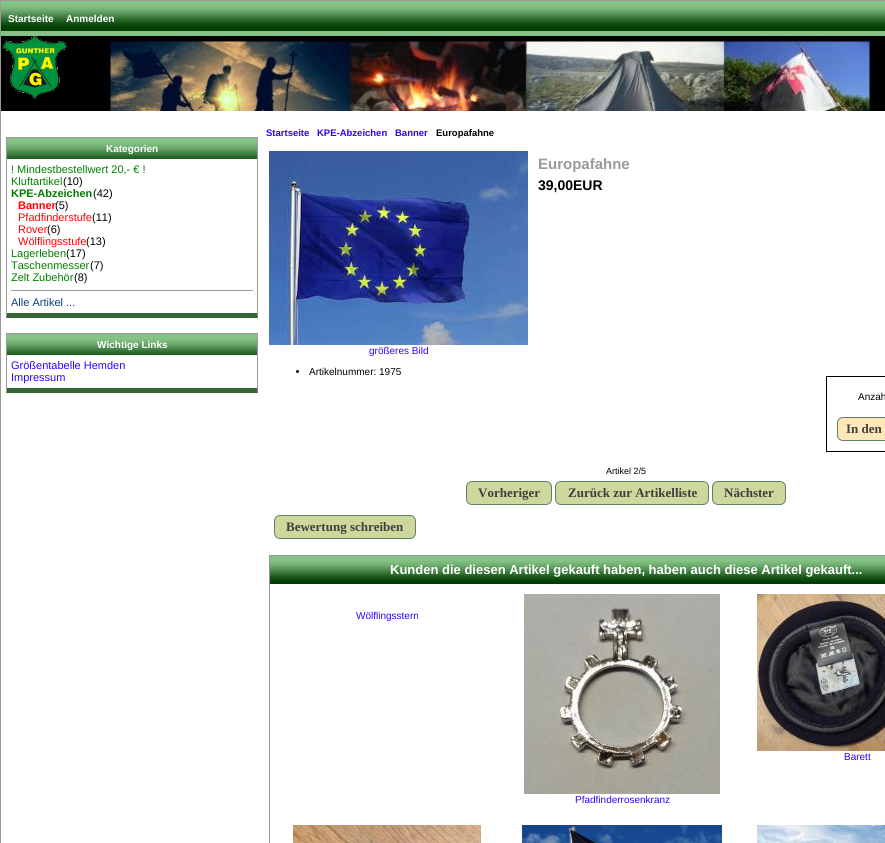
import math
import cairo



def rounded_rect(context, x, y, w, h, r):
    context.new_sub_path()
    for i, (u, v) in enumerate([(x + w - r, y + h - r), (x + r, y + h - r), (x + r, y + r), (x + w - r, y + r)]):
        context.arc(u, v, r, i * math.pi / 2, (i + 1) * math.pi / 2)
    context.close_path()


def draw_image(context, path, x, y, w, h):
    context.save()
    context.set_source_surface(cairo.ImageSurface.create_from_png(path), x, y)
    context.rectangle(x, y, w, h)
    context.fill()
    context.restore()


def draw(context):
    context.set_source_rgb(1, 1, 1)
    context.paint()
    context.rectangle(0.5, 0.5, 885, 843)
    context.set_source_rgb(154 / 255, 154 / 255, 154 / 255)
    context.set_line_width(1)
    context.stroke()
    draw_image(context, "images/1.png", 1, 1, 884, 35)
    draw_image(context, "images/2.png", 1, 36, 884, 75)
    draw_image(context, "images/3.png", 2, 36, 191, 63)
    context.rectangle(6, 137, 252, 1)
    context.fill()
    context.new_path()
    context.move_to(258, 137)
    context.line_to(258, 318)
    context.line_to(257, 313)
    context.line_to(257, 138)
    context.close_path()
    context.fill()
    context.set_source_rgb(51 / 255, 102 / 255, 51 / 255)
    context.new_path()
    context.move_to(258, 318)
    context.line_to(6, 318)
    context.line_to(7, 313)
    context.line_to(257, 313)
    context.close_path()
    context.fill()
    context.set_source_rgb(154 / 255, 154 / 255, 154 / 255)
    context.new_path()
    context.move_to(6, 318)
    context.line_to(6, 137)
    context.line_to(7, 138)
    context.line_to(7, 313)
    context.close_path()
    context.fill()
    draw_image(context, "images/4.png", 7, 138, 250, 21)
    context.rectangle(11, 290, 242, 1)
    context.fill()
    context.rectangle(6, 333, 252, 1)
    context.fill()
    context.new_path()
    context.move_to(258, 333)
    context.line_to(258, 393)
    context.line_to(257, 388)
    context.line_to(257, 334)
    context.close_path()
    context.fill()
    context.set_source_rgb(51 / 255, 102 / 255, 51 / 255)
    context.new_path()
    context.move_to(258, 393)
    context.line_to(6, 393)
    context.line_to(7, 388)
    context.line_to(257, 388)
    context.close_path()
    context.fill()
    context.set_source_rgb(154 / 255, 154 / 255, 154 / 255)
    context.new_path()
    context.move_to(6, 393)
    context.line_to(6, 333)
    context.line_to(7, 334)
    context.line_to(7, 388)
    context.close_path()
    context.fill()
    draw_image(context, "images/4.png", 7, 334, 250, 21)
    draw_image(context, "images/5.png", 269, 151, 259, 194)
    context.set_source_rgb(0, 0, 0)
    context.arc(297.5, 371.5, 1.5, 0, 2 * math.pi)
    context.fill()
    context.rectangle(826.5, 376.5, 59, 75)
    context.stroke()
    context.set_source_rgb(254 / 255, 232 / 255, 185 / 255)
    rounded_rect(context, 837.5, 417.5, 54, 23, 5.5)
    context.fill_preserve()
    context.set_source_rgb(99 / 255, 130 / 255, 99 / 255)
    context.stroke()
    context.set_source_rgb(206 / 255, 215 / 255, 156 / 255)
    rounded_rect(context, 466.5, 481.5, 85, 23, 5.5)
    context.fill_preserve()
    context.set_source_rgb(99 / 255, 130 / 255, 99 / 255)
    context.stroke()
    context.set_source_rgb(206 / 255, 215 / 255, 156 / 255)
    rounded_rect(context, 555.5, 481.5, 153, 23, 5.5)
    context.fill_preserve()
    context.set_source_rgb(99 / 255, 130 / 255, 99 / 255)
    context.stroke()
    context.set_source_rgb(206 / 255, 215 / 255, 156 / 255)
    rounded_rect(context, 712.5, 481.5, 73, 23, 5.5)
    context.fill_preserve()
    context.set_source_rgb(99 / 255, 130 / 255, 99 / 255)
    context.stroke()
    context.set_source_rgb(206 / 255, 215 / 255, 156 / 255)
    rounded_rect(context, 274.5, 515.5, 141, 23, 5.5)
    context.fill_preserve()
    context.set_source_rgb(99 / 255, 130 / 255, 99 / 255)
    context.stroke()
    context.rectangle(269.5, 555.5, 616, 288)
    context.set_source_rgb(154 / 255, 154 / 255, 154 / 255)
    context.stroke()
    draw_image(context, "images/6.png", 270, 556, 615, 28)
    draw_image(context, "images/7.png", 757, 594, 128, 157)
    draw_image(context, "images/8.png", 524, 594, 196, 200)
    draw_image(context, "images/9.png", 293, 825, 188, 18)
    draw_image(context, "images/10.png", 522, 825, 200, 18)
    draw_image(context, "images/11.png", 757, 825, 128, 18)
    context.select_font_face("Liberation Sans", cairo.FontSlant.NORMAL, cairo.FontWeight.BOLD)
    context.set_font_size(10)
    context.set_source_rgb(1, 1, 1)
    context.move_to(8, 22)
    context.show_text("Startseite")
    context.move_to(66, 22)
    context.show_text("Anmelden")
    context.move_to(106, 152)
    context.show_text("Kategorien")
    context.select_font_face("Liberation Sans")
    context.set_font_size(11)
    context.set_source_rgb(0, 128 / 255, 0)
    context.move_to(11, 173)
    context.show_text("! Mindestbestellwert 20,- € !")
    context.move_to(11, 185)
    context.show_text("Kluftartikel")
    context.set_source_rgb(0, 0, 0)
    context.move_to(63, 185)
    context.show_text("(10)")
    context.select_font_face("Liberation Sans", cairo.FontSlant.NORMAL, cairo.FontWeight.BOLD)
    context.set_source_rgb(0, 128 / 255, 0)
    context.move_to(11, 197)
    context.show_text("KPE-Abzeichen")
    context.select_font_face("Liberation Sans")
    context.set_source_rgb(0, 0, 0)
    context.move_to(93, 197)
    context.show_text("(42)")
    context.select_font_face("Liberation Sans", cairo.FontSlant.NORMAL, cairo.FontWeight.BOLD)
    context.set_source_rgb(1, 0, 0)
    context.move_to(18, 209)
    context.show_text("Banner")
    context.select_font_face("Liberation Sans")
    context.set_source_rgb(0, 0, 0)
    context.move_to(55, 209)
    context.show_text("(5)")
    context.set_source_rgb(1, 0, 0)
    context.move_to(18, 221)
    context.show_text("Pfadfinderstufe")
    context.set_source_rgb(0, 0, 0)
    context.move_to(92, 221)
    context.show_text("(11)")
    context.set_source_rgb(1, 0, 0)
    context.move_to(18, 233)
    context.show_text("Rover")
    context.set_source_rgb(0, 0, 0)
    context.move_to(47, 233)
    context.show_text("(6)")
    context.set_source_rgb(1, 0, 0)
    context.move_to(18, 245)
    context.show_text("Wölflingsstufe")
    context.set_source_rgb(0, 0, 0)
    context.move_to(86, 245)
    context.show_text("(13)")
    context.set_source_rgb(0, 128 / 255, 0)
    context.move_to(11, 257)
    context.show_text("Lagerleben")
    context.set_source_rgb(0, 0, 0)
    context.move_to(66, 257)
    context.show_text("(17)")
    context.set_source_rgb(0, 128 / 255, 0)
    context.move_to(11, 269)
    context.show_text("Taschenmesser")
    context.set_source_rgb(0, 0, 0)
    context.move_to(90, 269)
    context.show_text("(7)")
    context.set_source_rgb(0, 128 / 255, 0)
    context.move_to(11, 281)
    context.show_text("Zelt Zubehör")
    context.set_source_rgb(0, 0, 0)
    context.move_to(74, 281)
    context.show_text("(8)")
    context.set_source_rgb(0, 64 / 255, 128 / 255)
    context.move_to(11, 306)
    context.show_text("Alle Artikel ...")
    context.select_font_face("Liberation Sans", cairo.FontSlant.NORMAL, cairo.FontWeight.BOLD)
    context.set_font_size(10)
    context.set_source_rgb(1, 1, 1)
    context.move_to(97, 348)
    context.show_text("Wichtige Links")
    context.select_font_face("Liberation Sans")
    context.set_font_size(11)
    context.set_source_rgb(51 / 255, 0, 1)
    context.move_to(11, 369)
    context.show_text("Größentabelle Hemden")
    context.move_to(11, 381)
    context.show_text("Impressum")
    context.select_font_face("Liberation Sans", cairo.FontSlant.NORMAL, cairo.FontWeight.BOLD)
    context.set_font_size(9.5)
    context.move_to(266, 136)
    context.show_text("Startseite")
    context.move_to(317, 136)
    context.show_text("KPE-Abzeichen")
    context.move_to(395, 136)
    context.show_text("Banner")
    context.set_source_rgb(0, 0, 0)
    context.move_to(436, 136)
    context.show_text("Europafahne")
    context.set_font_size(15)
    context.set_source_rgb(154 / 255, 154 / 255, 154 / 255)
    context.move_to(538, 169)
    context.show_text("Europafahne")
    context.set_font_size(14)
    context.set_source_rgb(0, 0, 0)
    context.move_to(538, 190)
    context.show_text("39,00EUR")
    context.select_font_face("Liberation Sans")
    context.set_font_size(10)
    context.set_source_rgb(51 / 255, 0, 1)
    context.move_to(369, 354)
    context.show_text("größeres Bild")
    context.set_source_rgb(0, 0, 0)
    context.move_to(309, 375)
    context.show_text("Artikelnummer: 1975")
    context.move_to(858, 400)
    context.show_text("Anzah")
    context.select_font_face("Liberation Serif", cairo.FontSlant.NORMAL, cairo.FontWeight.BOLD)
    context.set_font_size(13)
    context.set_source_rgb(64 / 255, 64 / 255, 64 / 255)
    context.move_to(846, 433)
    context.show_text("In den")
    context.select_font_face("Liberation Sans")
    context.set_font_size(9)
    context.set_source_rgb(0, 0, 0)
    context.move_to(606, 474)
    context.show_text("Artikel 2/5")
    context.select_font_face("Liberation Serif", cairo.FontSlant.NORMAL, cairo.FontWeight.BOLD)
    context.set_font_size(13)
    context.set_source_rgb(64 / 255, 64 / 255, 64 / 255)
    context.move_to(478, 497)
    context.show_text("Vorheriger")
    context.move_to(568, 497)
    context.show_text("Zurück zur Artikelliste")
    context.move_to(724, 497)
    context.show_text("Nächster")
    context.move_to(286, 531)
    context.show_text("Bewertung schreiben")
    context.select_font_face("Liberation Sans", cairo.FontSlant.NORMAL, cairo.FontWeight.BOLD)
    context.set_source_rgb(1, 1, 1)
    context.move_to(390, 574)
    context.show_text("Kunden die diesen Artikel gekauft haben, haben auch diese Artikel gekauft...")
    context.select_font_face("Liberation Sans")
    context.set_font_size(10)
    context.set_source_rgb(51 / 255, 0, 1)
    context.move_to(356, 619)
    context.show_text("Wölflingsstern")
    context.move_to(844, 760)
    context.show_text("Barett")
    context.move_to(575, 803)
    context.show_text("Pfadfinderrosenkranz")


surface = cairo.ImageSurface(cairo.Format.RGB24, 885, 843)
context = cairo.Context(surface)
options = cairo.FontOptions()
options.set_hint_metrics(cairo.HintMetrics.OFF)
options.set_hint_style(cairo.HintStyle.NONE)
context.set_font_options(options)
context.set_miter_limit(4)
draw(context)
surface.write_to_png("out.png")
